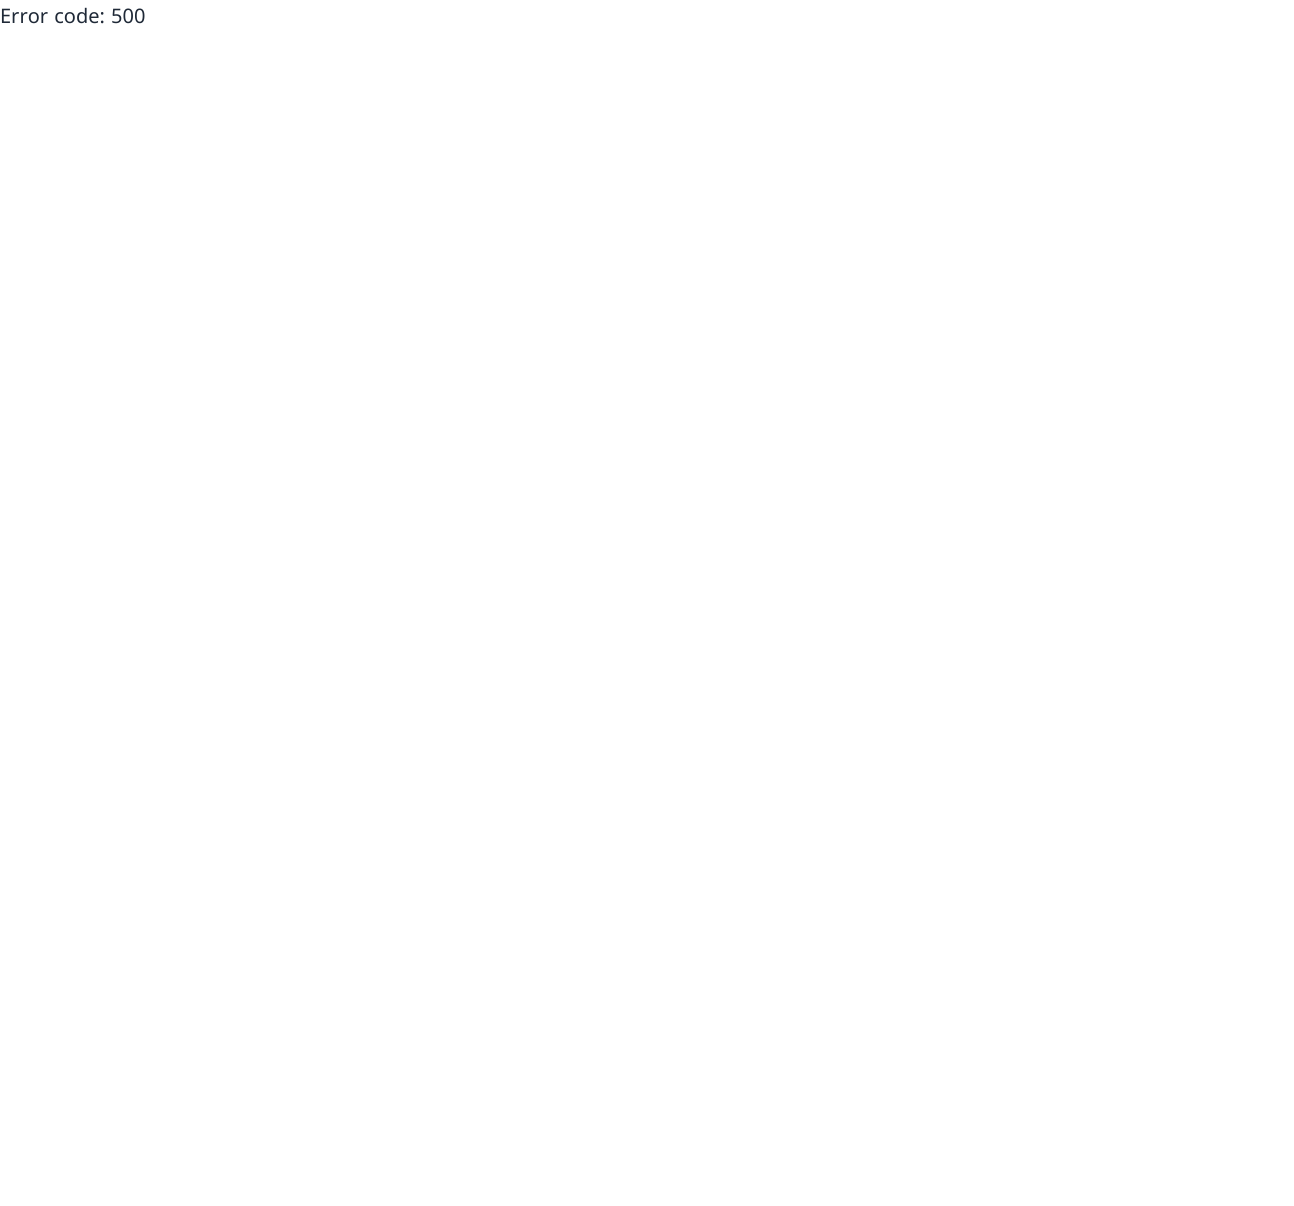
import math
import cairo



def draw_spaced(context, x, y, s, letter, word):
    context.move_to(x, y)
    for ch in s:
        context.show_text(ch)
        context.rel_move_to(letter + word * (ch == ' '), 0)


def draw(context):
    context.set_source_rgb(1, 1, 1)
    context.paint()
    context.select_font_face("Noto Sans")
    context.set_font_size(20)
    context.set_source_rgb(31 / 255, 41 / 255, 55 / 255)
    draw_spaced(context, 0, 23, "Error code: 500", 0, 1)


surface = cairo.ImageSurface(cairo.Format.RGB24, 1294, 1206)
context = cairo.Context(surface)
options = cairo.FontOptions()
options.set_hint_metrics(cairo.HintMetrics.OFF)
options.set_hint_style(cairo.HintStyle.NONE)
context.set_font_options(options)
context.set_miter_limit(4)
draw(context)
surface.write_to_png("out.png")
